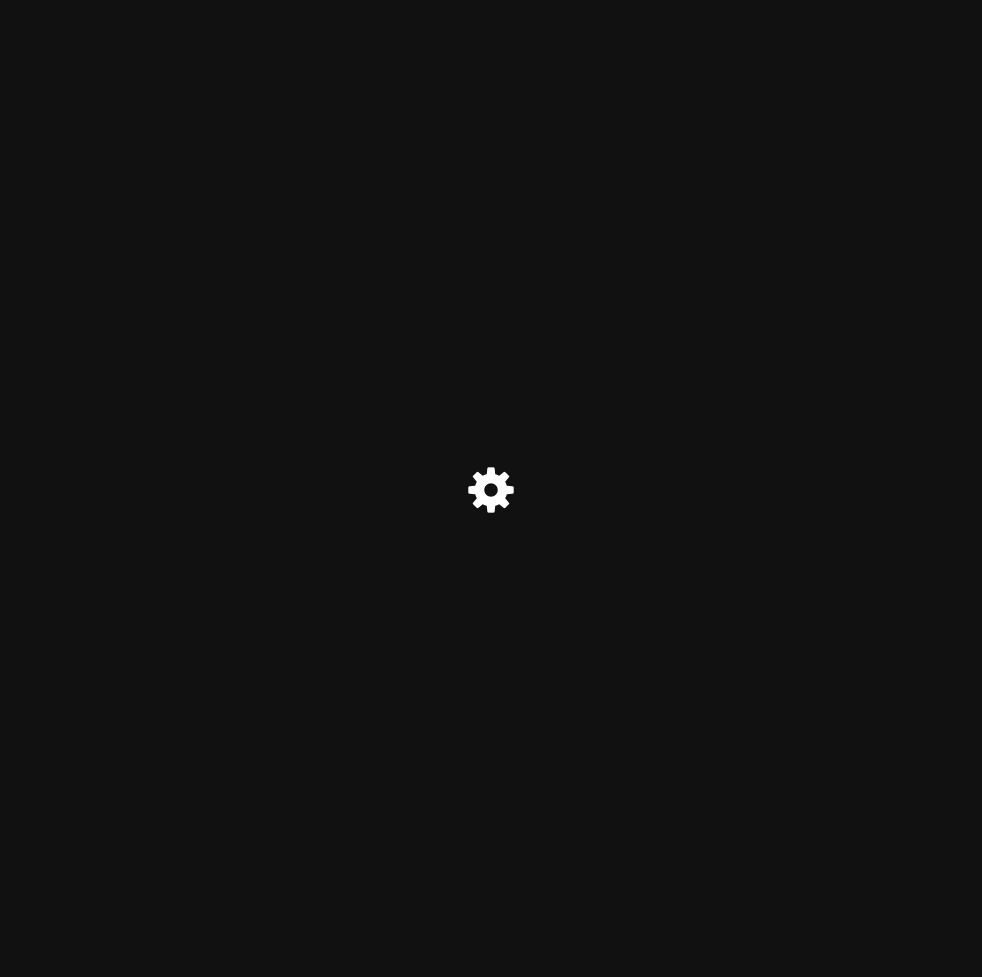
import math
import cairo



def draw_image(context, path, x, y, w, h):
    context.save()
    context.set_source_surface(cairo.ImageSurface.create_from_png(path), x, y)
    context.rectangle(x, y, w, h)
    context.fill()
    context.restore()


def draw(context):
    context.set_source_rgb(17 / 255, 17 / 255, 17 / 255)
    context.paint()
    draw_image(context, "images/1.png", 468, 467, 46, 46)


surface = cairo.ImageSurface(cairo.Format.RGB24, 982, 977)
context = cairo.Context(surface)
options = cairo.FontOptions()
options.set_hint_metrics(cairo.HintMetrics.OFF)
options.set_hint_style(cairo.HintStyle.NONE)
context.set_font_options(options)
context.set_miter_limit(4)
draw(context)
surface.write_to_png("out.png")
